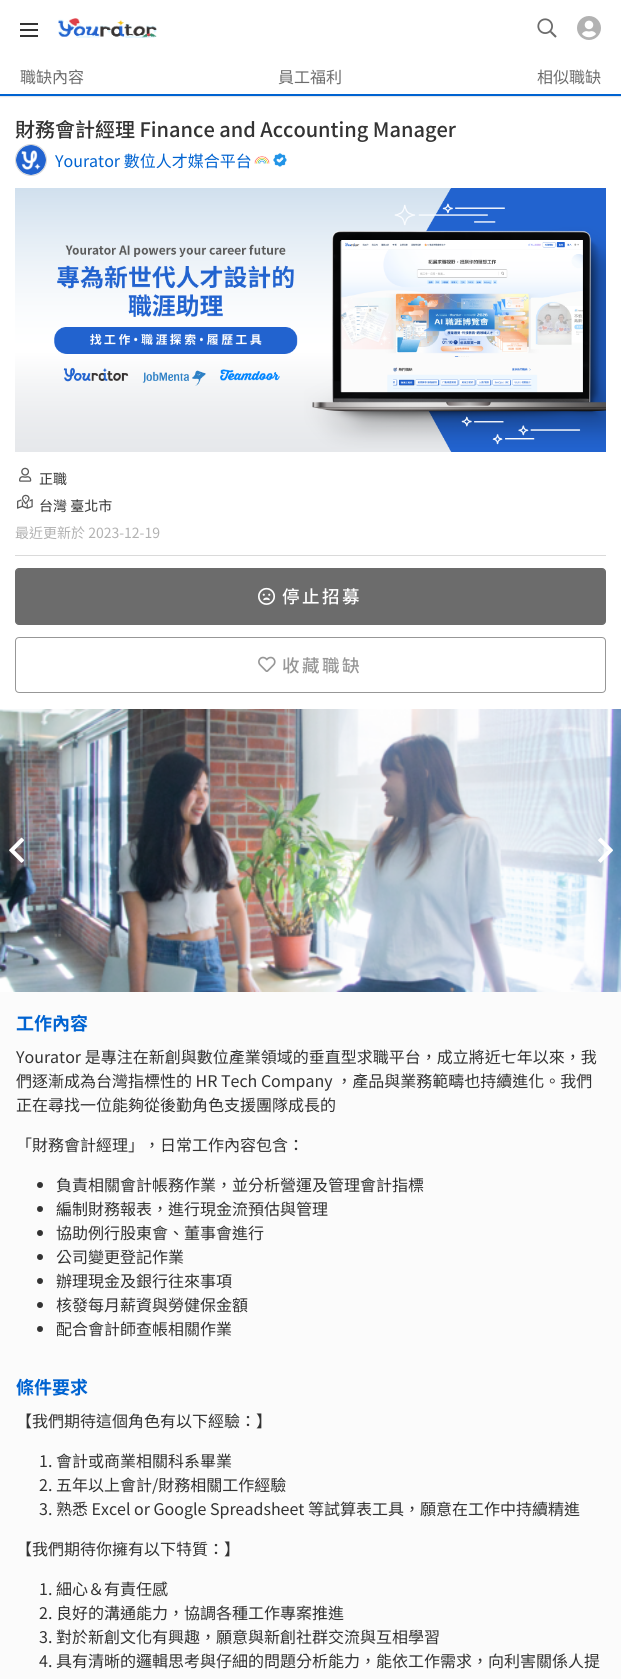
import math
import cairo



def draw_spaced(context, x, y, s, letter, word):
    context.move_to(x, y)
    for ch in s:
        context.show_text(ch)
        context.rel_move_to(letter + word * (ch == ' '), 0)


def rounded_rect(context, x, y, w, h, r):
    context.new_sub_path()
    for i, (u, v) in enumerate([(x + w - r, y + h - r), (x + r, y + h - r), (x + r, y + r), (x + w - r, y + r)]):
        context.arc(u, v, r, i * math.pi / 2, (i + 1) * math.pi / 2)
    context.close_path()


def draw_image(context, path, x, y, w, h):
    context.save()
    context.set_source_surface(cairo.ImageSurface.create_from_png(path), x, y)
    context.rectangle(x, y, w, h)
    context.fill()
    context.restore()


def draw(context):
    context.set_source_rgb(251 / 255, 251 / 255, 251 / 255)
    context.paint()
    context.set_source_rgb(1, 1, 1)
    context.rectangle(0, 0, 621, 94)
    context.fill()
    context.set_source_rgb(51 / 255, 51 / 255, 51 / 255)
    context.rectangle(20, 29, 18, 2)
    context.fill()
    context.rectangle(20, 23, 18, 2)
    context.fill()
    context.rectangle(20, 35, 18, 2)
    context.fill()
    draw_image(context, "images/1.png", 58, 18, 99, 20)
    draw_image(context, "images/2.png", 537, 18, 20, 20)
    draw_image(context, "images/3.png", 577, 16, 24, 24)
    context.set_source_rgb(229 / 255, 231 / 255, 235 / 255)
    context.rectangle(0, 96, 621, 1)
    context.fill()
    context.set_source_rgb(0, 99 / 255, 209 / 255)
    context.rectangle(0, 94, 621, 2)
    context.fill()
    context.set_source_rgb(1, 1, 1)
    context.rectangle(0, 98, 621, 611)
    context.fill()
    context.arc(31, 160, 15.5, 0, 2 * math.pi)
    context.set_source_rgb(214 / 255, 214 / 255, 214 / 255)
    context.set_line_width(1)
    context.stroke()
    draw_image(context, "images/4.png", 16, 145, 30, 30)
    draw_image(context, "images/5.png", 254, 156, 16, 8)
    draw_image(context, "images/6.png", 273, 153, 14, 14)
    draw_image(context, "images/7.png", 15, 188, 591, 264)
    context.set_source_rgb(218 / 255, 218 / 255, 218 / 255)
    context.rectangle(15, 555, 591, 1)
    context.fill()
    draw_image(context, "images/8.png", 19, 467, 13, 15)
    draw_image(context, "images/9.png", 17, 494, 16, 15)
    context.set_source_rgb(108 / 255, 108 / 255, 108 / 255)
    rounded_rect(context, 15.5, 568.5, 590, 56, 3.5)
    context.fill_preserve()
    context.stroke()
    draw_image(context, "images/10.png", 258, 587, 18, 18)
    rounded_rect(context, 15.5, 637.5, 590, 55, 3.5)
    context.set_source_rgb(151 / 255, 151 / 255, 151 / 255)
    context.stroke()
    draw_image(context, "images/11.png", 258, 656, 18, 16)
    draw_image(context, "images/12.png", 0, 709, 621, 283)
    draw_image(context, "images/13.png", 9, 837, 15, 26)
    draw_image(context, "images/14.png", 598, 837, 15, 26)
    context.set_source_rgb(51 / 255, 51 / 255, 51 / 255)
    context.arc(40, 1185, 3, 0, 2 * math.pi)
    context.fill()
    context.arc(40, 1209, 3, 0, 2 * math.pi)
    context.fill()
    context.arc(40, 1233, 3, 0, 2 * math.pi)
    context.fill()
    context.arc(40, 1257, 3, 0, 2 * math.pi)
    context.fill()
    context.arc(40, 1281, 3, 0, 2 * math.pi)
    context.fill()
    context.arc(40, 1305, 3, 0, 2 * math.pi)
    context.fill()
    context.arc(40, 1329, 3, 0, 2 * math.pi)
    context.fill()
    context.select_font_face("Noto Sans TC")
    context.set_font_size(16)
    context.set_source_rgb(108 / 255, 108 / 255, 108 / 255)
    context.move_to(20, 83)
    context.show_text("職缺內容")
    context.move_to(278, 83)
    context.show_text("員工福利")
    context.move_to(537, 83)
    context.show_text("相似職缺")
    context.select_font_face("Noto Sans TC Medium")
    context.set_font_size(20)
    context.set_source_rgb(51 / 255, 51 / 255, 51 / 255)
    context.move_to(15, 137)
    context.show_text("財務會計經理 Finance and Accounting Manager")
    context.select_font_face("Noto Sans TC")
    context.set_font_size(16)
    context.set_source_rgb(0, 99 / 255, 209 / 255)
    context.move_to(55, 167)
    context.show_text("Yourator 數位人才媒合平台")
    context.set_font_size(14)
    context.set_source_rgb(51 / 255, 51 / 255, 51 / 255)
    context.move_to(39, 484)
    context.show_text("正職")
    context.move_to(39, 511)
    context.show_text("台灣 臺北市")
    context.set_source_rgb(178 / 255, 178 / 255, 178 / 255)
    context.move_to(15, 538)
    context.show_text("最近更新於 2023-12-19")
    context.select_font_face("Noto Sans TC Medium")
    context.set_font_size(17.5)
    context.set_source_rgb(1, 1, 1)
    draw_spaced(context, 282, 603, "停止招募", 2.5, 0)
    context.set_source_rgb(151 / 255, 151 / 255, 151 / 255)
    draw_spaced(context, 282, 672, "收藏職缺", 2.5, 0)
    context.select_font_face("Noto Sans TC", cairo.FontSlant.NORMAL, cairo.FontWeight.BOLD)
    context.set_font_size(18)
    context.set_source_rgb(0, 99 / 255, 209 / 255)
    context.move_to(16, 1030)
    context.show_text("工作內容")
    context.select_font_face("Noto Sans TC")
    context.set_font_size(16)
    context.set_source_rgb(51 / 255, 51 / 255, 51 / 255)
    context.move_to(16, 1063)
    context.show_text("Yourator 是專注在新創與數位產業領域的垂直型求職平台，成立將近七年以來，我")
    context.move_to(16, 1087)
    context.show_text("們逐漸成為台灣指標性的 HR Tech Company ，產品與業務範疇也持續進化。我們")
    context.move_to(16, 1111)
    context.show_text("正在尋找一位能夠從後勤角色支援團隊成長的")
    context.move_to(16, 1151)
    context.show_text("「財務會計經理」，日常工作內容包含：")
    context.move_to(56, 1191)
    context.show_text("負責相關會計帳務作業，並分析營運及管理會計指標")
    context.move_to(56, 1215)
    context.show_text("編制財務報表，進行現金流預估與管理")
    context.move_to(56, 1239)
    context.show_text("協助例行股東會、董事會進行")
    context.move_to(56, 1263)
    context.show_text("公司變更登記作業")
    context.move_to(56, 1287)
    context.show_text("辦理現金及銀行往來事項")
    context.move_to(56, 1311)
    context.show_text("核發每月薪資與勞健保金額")
    context.move_to(56, 1335)
    context.show_text("配合會計師查帳相關作業")
    context.select_font_face("Noto Sans TC", cairo.FontSlant.NORMAL, cairo.FontWeight.BOLD)
    context.set_font_size(18)
    context.set_source_rgb(0, 99 / 255, 209 / 255)
    context.move_to(16, 1394)
    context.show_text("條件要求")
    context.select_font_face("Noto Sans TC")
    context.set_font_size(16)
    context.set_source_rgb(51 / 255, 51 / 255, 51 / 255)
    context.move_to(16, 1427)
    context.show_text("【我們期待這個角色有以下經驗：】")
    context.move_to(39, 1467)
    context.show_text("1. 會計或商業相關科系畢業")
    context.move_to(39, 1491)
    context.show_text("2. 五年以上會計/財務相關工作經驗")
    context.move_to(39, 1515)
    context.show_text("3. 熟悉 Excel or Google Spreadsheet 等試算表工具，願意在工作中持續精進")
    context.move_to(16, 1555)
    context.show_text("【我們期待你擁有以下特質：】")
    context.move_to(39, 1595)
    context.show_text("1. 細心＆有責任感")
    context.move_to(39, 1619)
    context.show_text("2. 良好的溝通能力，協調各種工作專案推進")
    context.move_to(39, 1643)
    context.show_text("3. 對於新創文化有興趣，願意與新創社群交流與互相學習")
    context.move_to(39, 1667)
    context.show_text("4. 具有清晰的邏輯思考與仔細的問題分析能力，能依工作需求，向利害關係人提")


surface = cairo.ImageSurface(cairo.Format.RGB24, 621, 1679)
context = cairo.Context(surface)
options = cairo.FontOptions()
options.set_hint_metrics(cairo.HintMetrics.OFF)
options.set_hint_style(cairo.HintStyle.NONE)
context.set_font_options(options)
context.set_miter_limit(4)
draw(context)
surface.write_to_png("out.png")
